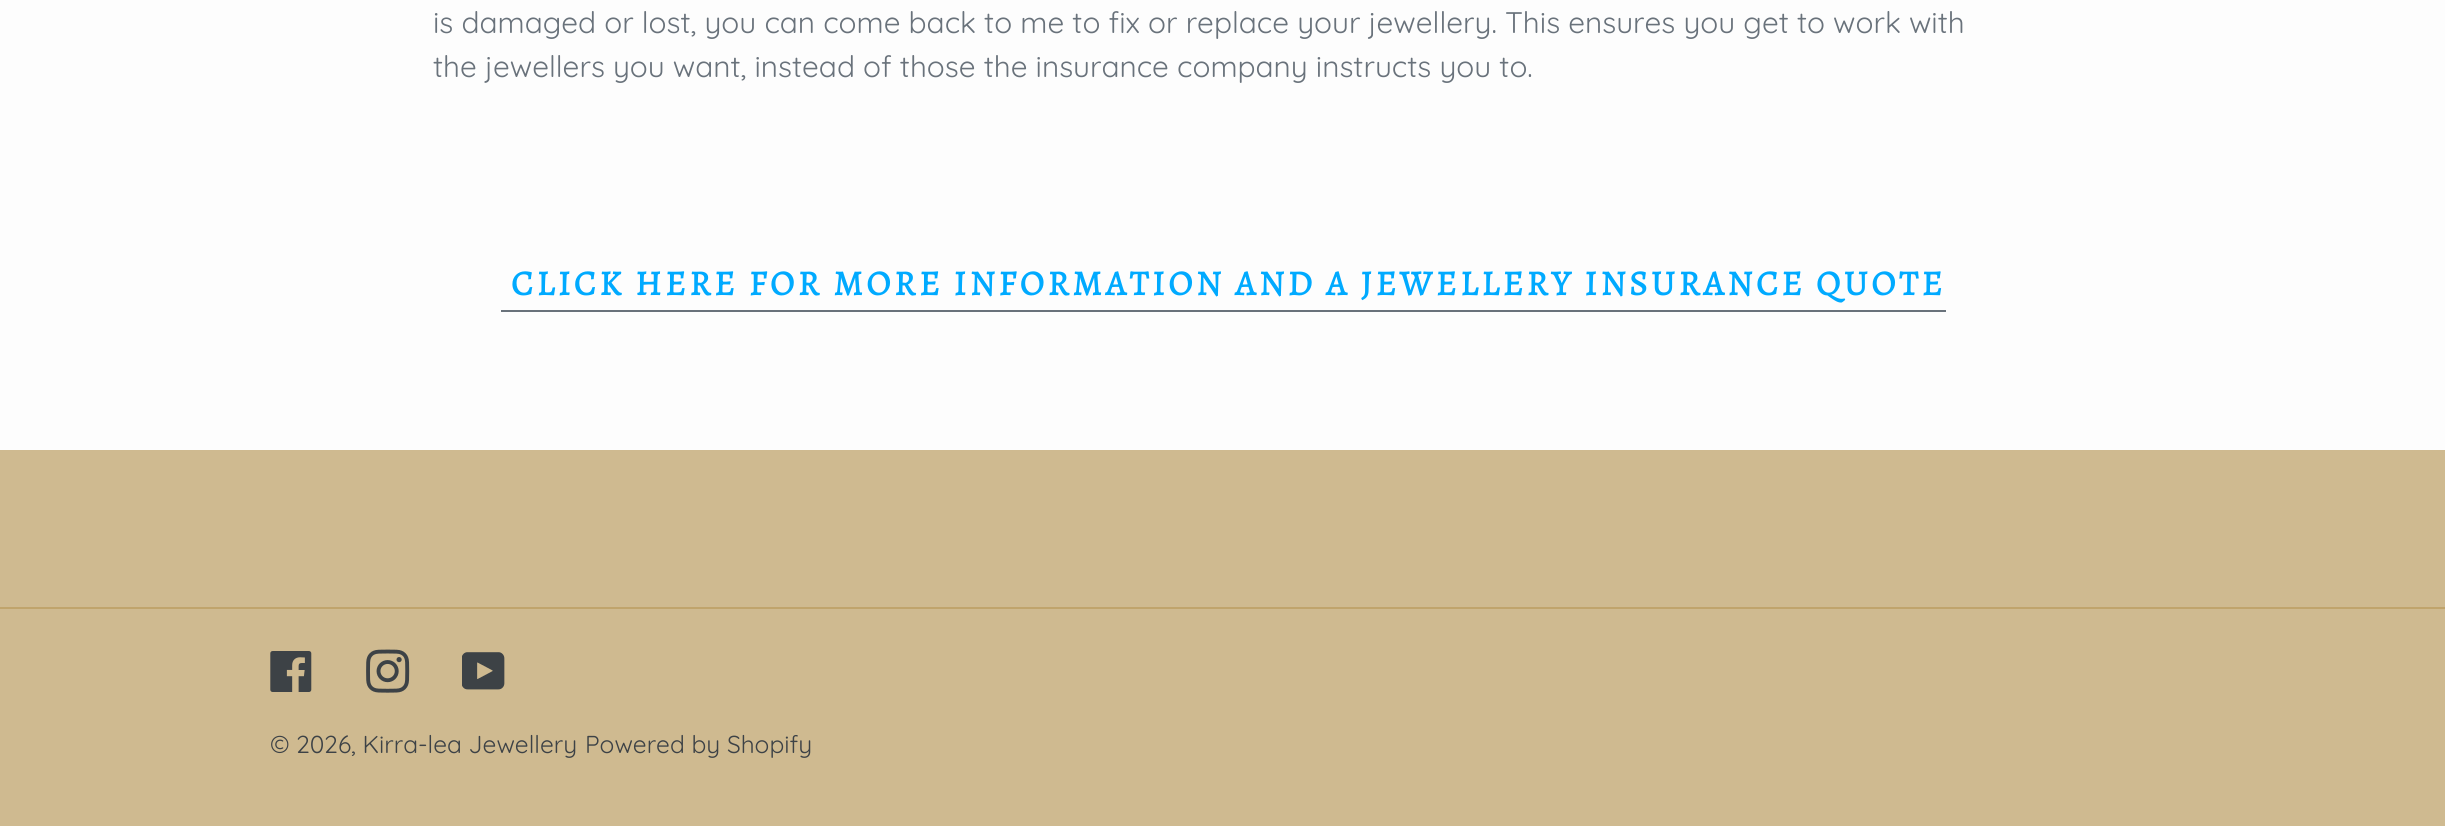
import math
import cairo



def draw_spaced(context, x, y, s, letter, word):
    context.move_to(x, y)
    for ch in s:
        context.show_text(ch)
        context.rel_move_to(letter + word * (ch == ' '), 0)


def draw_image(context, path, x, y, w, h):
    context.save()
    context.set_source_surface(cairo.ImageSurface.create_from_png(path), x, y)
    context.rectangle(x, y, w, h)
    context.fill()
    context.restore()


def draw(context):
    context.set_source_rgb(253 / 255, 253 / 255, 253 / 255)
    context.paint()
    context.set_source_rgb(105 / 255, 114 / 255, 123 / 255)
    context.rectangle(501, 310, 1445, 2)
    context.fill()
    context.set_source_rgb(207 / 255, 186 / 255, 144 / 255)
    context.rectangle(0, 450, 2445, 376)
    context.fill()
    context.set_source_rgb(192 / 255, 164 / 255, 108 / 255)
    context.rectangle(0, 607, 2445, 2)
    context.fill()
    draw_image(context, "images/1.png", 270, 651, 42, 41)
    draw_image(context, "images/2.png", 366, 649, 44, 44)
    draw_image(context, "images/3.png", 462, 652, 43, 38)
    context.select_font_face("Quicksand")
    context.set_font_size(29.75)
    context.set_source_rgb(105 / 255, 114 / 255, 123 / 255)
    context.move_to(433, 33)
    context.show_text("is damaged or lost, you can come back to me to fix or replace your jewellery. This ensures you get to work with")
    context.move_to(433, 77)
    context.show_text("the jewellers you want, instead of those the insurance company instructs you to.")
    context.select_font_face("Alegreya", cairo.FontSlant.NORMAL, cairo.FontWeight.BOLD)
    context.set_font_size(35)
    context.set_source_rgb(0, 170 / 255, 1)
    draw_spaced(context, 511, 295, "CLICK HERE FOR MORE INFORMATION AND A JEWELLERY INSURANCE QUOTE", 3.5, 0)
    context.select_font_face("Quicksand")
    context.set_font_size(24.5)
    context.set_source_rgb(61 / 255, 66 / 255, 70 / 255)
    context.move_to(270, 753)
    context.show_text("© 2026, Kirra-lea Jewellery")
    context.move_to(585, 753)
    context.show_text("Powered by Shopify")


surface = cairo.ImageSurface(cairo.Format.RGB24, 2445, 826)
context = cairo.Context(surface)
options = cairo.FontOptions()
options.set_hint_metrics(cairo.HintMetrics.OFF)
options.set_hint_style(cairo.HintStyle.NONE)
context.set_font_options(options)
context.set_miter_limit(4)
draw(context)
surface.write_to_png("out.png")
